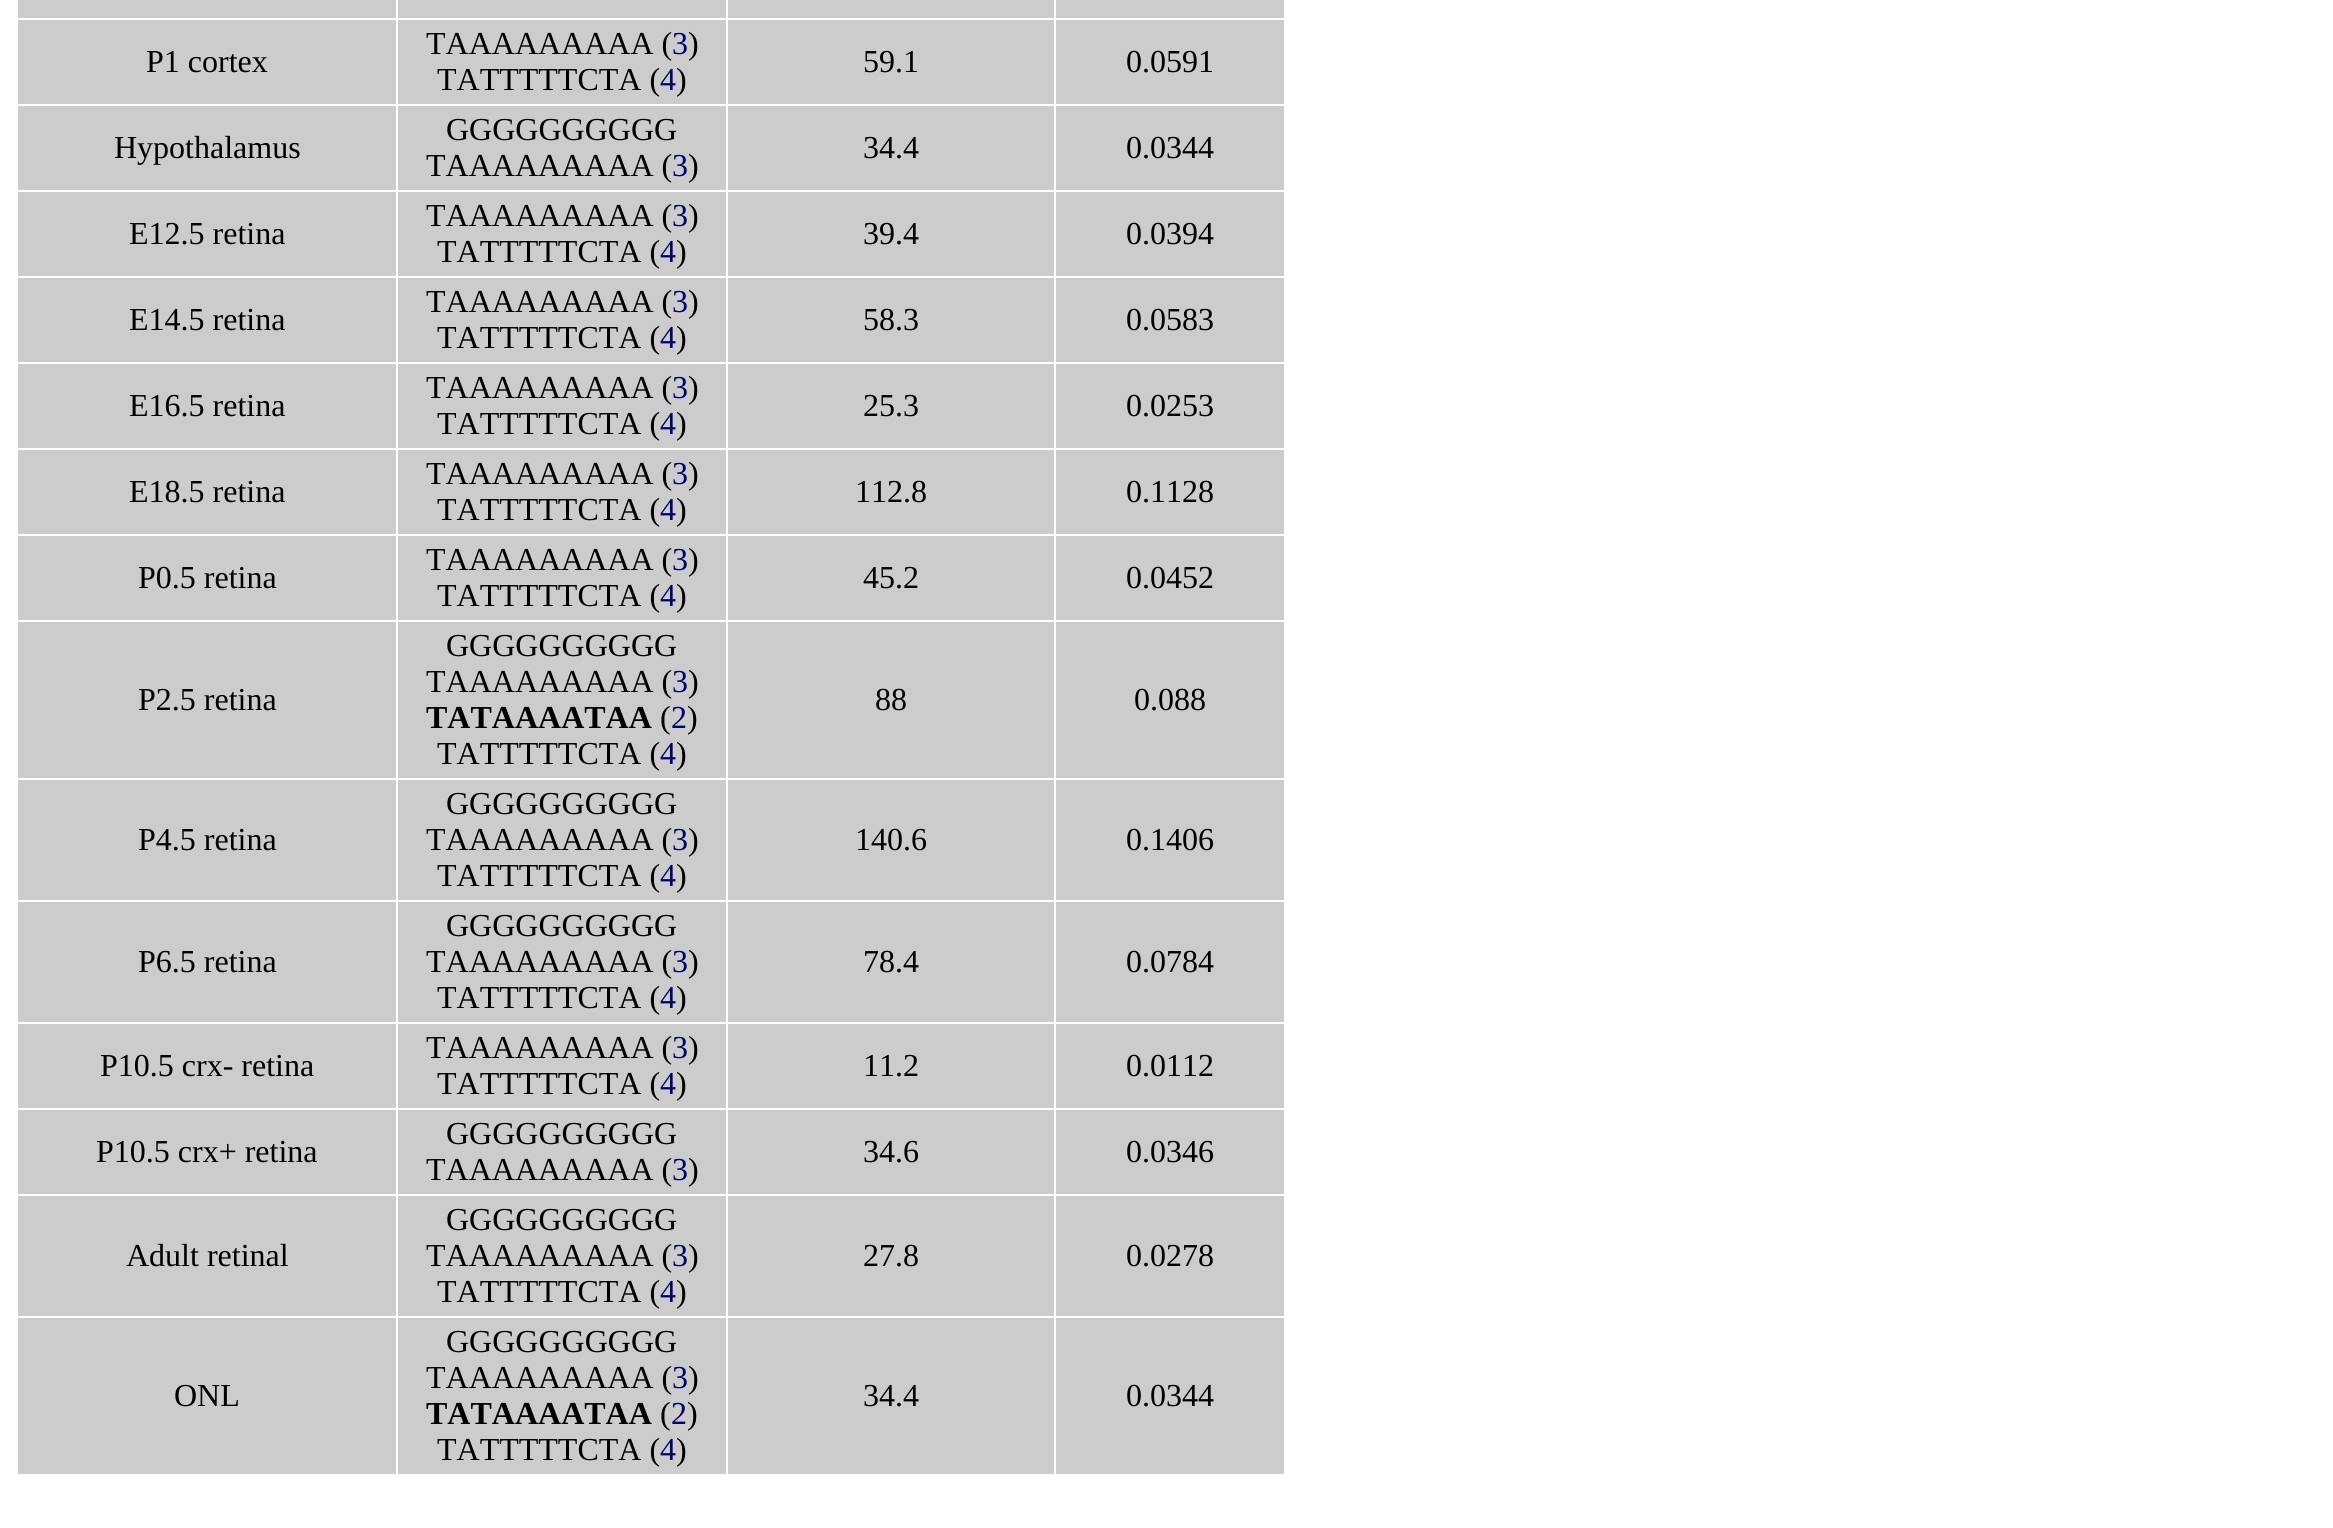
import math
import cairo



def draw(context):
    context.set_source_rgb(1, 1, 1)
    context.paint()
    context.set_source_rgb(204 / 255, 204 / 255, 204 / 255)
    context.rectangle(18, 0, 378, 18)
    context.fill()
    context.rectangle(398, 0, 328, 18)
    context.fill()
    context.rectangle(728, 0, 326, 18)
    context.fill()
    context.rectangle(1056, 0, 228, 18)
    context.fill()
    context.rectangle(18, 20, 378, 84)
    context.fill()
    context.rectangle(398, 20, 328, 84)
    context.fill()
    context.rectangle(728, 20, 326, 84)
    context.fill()
    context.rectangle(1056, 20, 228, 84)
    context.fill()
    context.rectangle(18, 106, 378, 84)
    context.fill()
    context.rectangle(398, 106, 328, 84)
    context.fill()
    context.rectangle(728, 106, 326, 84)
    context.fill()
    context.rectangle(1056, 106, 228, 84)
    context.fill()
    context.rectangle(18, 192, 378, 84)
    context.fill()
    context.rectangle(398, 192, 328, 84)
    context.fill()
    context.rectangle(728, 192, 326, 84)
    context.fill()
    context.rectangle(1056, 192, 228, 84)
    context.fill()
    context.rectangle(18, 278, 378, 84)
    context.fill()
    context.rectangle(398, 278, 328, 84)
    context.fill()
    context.rectangle(728, 278, 326, 84)
    context.fill()
    context.rectangle(1056, 278, 228, 84)
    context.fill()
    context.rectangle(18, 364, 378, 84)
    context.fill()
    context.rectangle(398, 364, 328, 84)
    context.fill()
    context.rectangle(728, 364, 326, 84)
    context.fill()
    context.rectangle(1056, 364, 228, 84)
    context.fill()
    context.rectangle(18, 450, 378, 84)
    context.fill()
    context.rectangle(398, 450, 328, 84)
    context.fill()
    context.rectangle(728, 450, 326, 84)
    context.fill()
    context.rectangle(1056, 450, 228, 84)
    context.fill()
    context.rectangle(18, 536, 378, 84)
    context.fill()
    context.rectangle(398, 536, 328, 84)
    context.fill()
    context.rectangle(728, 536, 326, 84)
    context.fill()
    context.rectangle(1056, 536, 228, 84)
    context.fill()
    context.rectangle(18, 622, 378, 156)
    context.fill()
    context.rectangle(398, 622, 328, 156)
    context.fill()
    context.rectangle(728, 622, 326, 156)
    context.fill()
    context.rectangle(1056, 622, 228, 156)
    context.fill()
    context.rectangle(18, 780, 378, 120)
    context.fill()
    context.rectangle(398, 780, 328, 120)
    context.fill()
    context.rectangle(728, 780, 326, 120)
    context.fill()
    context.rectangle(1056, 780, 228, 120)
    context.fill()
    context.rectangle(18, 902, 378, 120)
    context.fill()
    context.rectangle(398, 902, 328, 120)
    context.fill()
    context.rectangle(728, 902, 326, 120)
    context.fill()
    context.rectangle(1056, 902, 228, 120)
    context.fill()
    context.rectangle(18, 1024, 378, 84)
    context.fill()
    context.rectangle(398, 1024, 328, 84)
    context.fill()
    context.rectangle(728, 1024, 326, 84)
    context.fill()
    context.rectangle(1056, 1024, 228, 84)
    context.fill()
    context.rectangle(18, 1110, 378, 84)
    context.fill()
    context.rectangle(398, 1110, 328, 84)
    context.fill()
    context.rectangle(728, 1110, 326, 84)
    context.fill()
    context.rectangle(1056, 1110, 228, 84)
    context.fill()
    context.rectangle(18, 1196, 378, 120)
    context.fill()
    context.rectangle(398, 1196, 328, 120)
    context.fill()
    context.rectangle(728, 1196, 326, 120)
    context.fill()
    context.rectangle(1056, 1196, 228, 120)
    context.fill()
    context.rectangle(18, 1318, 378, 156)
    context.fill()
    context.rectangle(398, 1318, 328, 156)
    context.fill()
    context.rectangle(728, 1318, 326, 156)
    context.fill()
    context.rectangle(1056, 1318, 228, 156)
    context.fill()
    context.select_font_face("Liberation Serif")
    context.set_font_size(32)
    context.set_source_rgb(0, 0, 0)
    context.move_to(146, 72)
    context.show_text("P1 cortex")
    context.move_to(426, 54)
    context.show_text("TAAAAAAAAA (")
    context.set_source_rgb(0, 0, 102 / 255)
    context.move_to(672, 54)
    context.show_text("3")
    context.set_source_rgb(0, 0, 0)
    context.move_to(688, 54)
    context.show_text(")")
    context.move_to(437, 90)
    context.show_text("TATTTTTCTA (")
    context.set_source_rgb(0, 0, 102 / 255)
    context.move_to(660, 90)
    context.show_text("4")
    context.set_source_rgb(0, 0, 0)
    context.move_to(676, 90)
    context.show_text(")")
    context.move_to(863, 72)
    context.show_text("59.1")
    context.move_to(1126, 72)
    context.show_text("0.0591")
    context.move_to(114, 158)
    context.show_text("Hypothalamus")
    context.move_to(446, 140)
    context.show_text("GGGGGGGGGG")
    context.move_to(426, 176)
    context.show_text("TAAAAAAAAA (")
    context.set_source_rgb(0, 0, 102 / 255)
    context.move_to(672, 176)
    context.show_text("3")
    context.set_source_rgb(0, 0, 0)
    context.move_to(688, 176)
    context.show_text(")")
    context.move_to(863, 158)
    context.show_text("34.4")
    context.move_to(1126, 158)
    context.show_text("0.0344")
    context.move_to(129, 244)
    context.show_text("E12.5 retina")
    context.move_to(426, 226)
    context.show_text("TAAAAAAAAA (")
    context.set_source_rgb(0, 0, 102 / 255)
    context.move_to(672, 226)
    context.show_text("3")
    context.set_source_rgb(0, 0, 0)
    context.move_to(688, 226)
    context.show_text(")")
    context.move_to(437, 262)
    context.show_text("TATTTTTCTA (")
    context.set_source_rgb(0, 0, 102 / 255)
    context.move_to(660, 262)
    context.show_text("4")
    context.set_source_rgb(0, 0, 0)
    context.move_to(676, 262)
    context.show_text(")")
    context.move_to(863, 244)
    context.show_text("39.4")
    context.move_to(1126, 244)
    context.show_text("0.0394")
    context.move_to(129, 330)
    context.show_text("E14.5 retina")
    context.move_to(426, 312)
    context.show_text("TAAAAAAAAA (")
    context.set_source_rgb(0, 0, 102 / 255)
    context.move_to(672, 312)
    context.show_text("3")
    context.set_source_rgb(0, 0, 0)
    context.move_to(688, 312)
    context.show_text(")")
    context.move_to(437, 348)
    context.show_text("TATTTTTCTA (")
    context.set_source_rgb(0, 0, 102 / 255)
    context.move_to(660, 348)
    context.show_text("4")
    context.set_source_rgb(0, 0, 0)
    context.move_to(676, 348)
    context.show_text(")")
    context.move_to(863, 330)
    context.show_text("58.3")
    context.move_to(1126, 330)
    context.show_text("0.0583")
    context.move_to(129, 416)
    context.show_text("E16.5 retina")
    context.move_to(426, 398)
    context.show_text("TAAAAAAAAA (")
    context.set_source_rgb(0, 0, 102 / 255)
    context.move_to(672, 398)
    context.show_text("3")
    context.set_source_rgb(0, 0, 0)
    context.move_to(688, 398)
    context.show_text(")")
    context.move_to(437, 434)
    context.show_text("TATTTTTCTA (")
    context.set_source_rgb(0, 0, 102 / 255)
    context.move_to(660, 434)
    context.show_text("4")
    context.set_source_rgb(0, 0, 0)
    context.move_to(676, 434)
    context.show_text(")")
    context.move_to(863, 416)
    context.show_text("25.3")
    context.move_to(1126, 416)
    context.show_text("0.0253")
    context.move_to(129, 502)
    context.show_text("E18.5 retina")
    context.move_to(426, 484)
    context.show_text("TAAAAAAAAA (")
    context.set_source_rgb(0, 0, 102 / 255)
    context.move_to(672, 484)
    context.show_text("3")
    context.set_source_rgb(0, 0, 0)
    context.move_to(688, 484)
    context.show_text(")")
    context.move_to(437, 520)
    context.show_text("TATTTTTCTA (")
    context.set_source_rgb(0, 0, 102 / 255)
    context.move_to(660, 520)
    context.show_text("4")
    context.set_source_rgb(0, 0, 0)
    context.move_to(676, 520)
    context.show_text(")")
    context.move_to(855, 502)
    context.show_text("112.8")
    context.move_to(1126, 502)
    context.show_text("0.1128")
    context.move_to(138, 588)
    context.show_text("P0.5 retina")
    context.move_to(426, 570)
    context.show_text("TAAAAAAAAA (")
    context.set_source_rgb(0, 0, 102 / 255)
    context.move_to(672, 570)
    context.show_text("3")
    context.set_source_rgb(0, 0, 0)
    context.move_to(688, 570)
    context.show_text(")")
    context.move_to(437, 606)
    context.show_text("TATTTTTCTA (")
    context.set_source_rgb(0, 0, 102 / 255)
    context.move_to(660, 606)
    context.show_text("4")
    context.set_source_rgb(0, 0, 0)
    context.move_to(676, 606)
    context.show_text(")")
    context.move_to(863, 588)
    context.show_text("45.2")
    context.move_to(1126, 588)
    context.show_text("0.0452")
    context.move_to(138, 710)
    context.show_text("P2.5 retina")
    context.move_to(446, 656)
    context.show_text("GGGGGGGGGG")
    context.move_to(426, 692)
    context.show_text("TAAAAAAAAA (")
    context.set_source_rgb(0, 0, 102 / 255)
    context.move_to(672, 692)
    context.show_text("3")
    context.set_source_rgb(0, 0, 0)
    context.move_to(688, 692)
    context.show_text(")")
    context.select_font_face("Liberation Serif", cairo.FontSlant.NORMAL, cairo.FontWeight.BOLD)
    context.move_to(426, 728)
    context.show_text("TATAAAATAA")
    context.select_font_face("Liberation Serif")
    context.move_to(660, 728)
    context.show_text("(")
    context.set_source_rgb(0, 0, 102 / 255)
    context.move_to(671, 728)
    context.show_text("2")
    context.set_source_rgb(0, 0, 0)
    context.move_to(687, 728)
    context.show_text(")")
    context.move_to(437, 764)
    context.show_text("TATTTTTCTA (")
    context.set_source_rgb(0, 0, 102 / 255)
    context.move_to(660, 764)
    context.show_text("4")
    context.set_source_rgb(0, 0, 0)
    context.move_to(676, 764)
    context.show_text(")")
    context.move_to(875, 710)
    context.show_text("88")
    context.move_to(1134, 710)
    context.show_text("0.088")
    context.move_to(138, 850)
    context.show_text("P4.5 retina")
    context.move_to(446, 814)
    context.show_text("GGGGGGGGGG")
    context.move_to(426, 850)
    context.show_text("TAAAAAAAAA (")
    context.set_source_rgb(0, 0, 102 / 255)
    context.move_to(672, 850)
    context.show_text("3")
    context.set_source_rgb(0, 0, 0)
    context.move_to(688, 850)
    context.show_text(")")
    context.move_to(437, 886)
    context.show_text("TATTTTTCTA (")
    context.set_source_rgb(0, 0, 102 / 255)
    context.move_to(660, 886)
    context.show_text("4")
    context.set_source_rgb(0, 0, 0)
    context.move_to(676, 886)
    context.show_text(")")
    context.move_to(855, 850)
    context.show_text("140.6")
    context.move_to(1126, 850)
    context.show_text("0.1406")
    context.move_to(138, 972)
    context.show_text("P6.5 retina")
    context.move_to(446, 936)
    context.show_text("GGGGGGGGGG")
    context.move_to(426, 972)
    context.show_text("TAAAAAAAAA (")
    context.set_source_rgb(0, 0, 102 / 255)
    context.move_to(672, 972)
    context.show_text("3")
    context.set_source_rgb(0, 0, 0)
    context.move_to(688, 972)
    context.show_text(")")
    context.move_to(437, 1008)
    context.show_text("TATTTTTCTA (")
    context.set_source_rgb(0, 0, 102 / 255)
    context.move_to(660, 1008)
    context.show_text("4")
    context.set_source_rgb(0, 0, 0)
    context.move_to(676, 1008)
    context.show_text(")")
    context.move_to(863, 972)
    context.show_text("78.4")
    context.move_to(1126, 972)
    context.show_text("0.0784")
    context.move_to(100, 1076)
    context.show_text("P10.5 crx- retina")
    context.move_to(426, 1058)
    context.show_text("TAAAAAAAAA (")
    context.set_source_rgb(0, 0, 102 / 255)
    context.move_to(672, 1058)
    context.show_text("3")
    context.set_source_rgb(0, 0, 0)
    context.move_to(688, 1058)
    context.show_text(")")
    context.move_to(437, 1094)
    context.show_text("TATTTTTCTA (")
    context.set_source_rgb(0, 0, 102 / 255)
    context.move_to(660, 1094)
    context.show_text("4")
    context.set_source_rgb(0, 0, 0)
    context.move_to(676, 1094)
    context.show_text(")")
    context.move_to(863, 1076)
    context.show_text("11.2")
    context.move_to(1126, 1076)
    context.show_text("0.0112")
    context.move_to(96, 1162)
    context.show_text("P10.5 crx+ retina")
    context.move_to(446, 1144)
    context.show_text("GGGGGGGGGG")
    context.move_to(426, 1180)
    context.show_text("TAAAAAAAAA (")
    context.set_source_rgb(0, 0, 102 / 255)
    context.move_to(672, 1180)
    context.show_text("3")
    context.set_source_rgb(0, 0, 0)
    context.move_to(688, 1180)
    context.show_text(")")
    context.move_to(863, 1162)
    context.show_text("34.6")
    context.move_to(1126, 1162)
    context.show_text("0.0346")
    context.move_to(126, 1266)
    context.show_text("Adult retinal")
    context.move_to(446, 1230)
    context.show_text("GGGGGGGGGG")
    context.move_to(426, 1266)
    context.show_text("TAAAAAAAAA (")
    context.set_source_rgb(0, 0, 102 / 255)
    context.move_to(672, 1266)
    context.show_text("3")
    context.set_source_rgb(0, 0, 0)
    context.move_to(688, 1266)
    context.show_text(")")
    context.move_to(437, 1302)
    context.show_text("TATTTTTCTA (")
    context.set_source_rgb(0, 0, 102 / 255)
    context.move_to(660, 1302)
    context.show_text("4")
    context.set_source_rgb(0, 0, 0)
    context.move_to(676, 1302)
    context.show_text(")")
    context.move_to(863, 1266)
    context.show_text("27.8")
    context.move_to(1126, 1266)
    context.show_text("0.0278")
    context.move_to(174, 1406)
    context.show_text("ONL")
    context.move_to(446, 1352)
    context.show_text("GGGGGGGGGG")
    context.move_to(426, 1388)
    context.show_text("TAAAAAAAAA (")
    context.set_source_rgb(0, 0, 102 / 255)
    context.move_to(672, 1388)
    context.show_text("3")
    context.set_source_rgb(0, 0, 0)
    context.move_to(688, 1388)
    context.show_text(")")
    context.select_font_face("Liberation Serif", cairo.FontSlant.NORMAL, cairo.FontWeight.BOLD)
    context.move_to(426, 1424)
    context.show_text("TATAAAATAA")
    context.select_font_face("Liberation Serif")
    context.move_to(660, 1424)
    context.show_text("(")
    context.set_source_rgb(0, 0, 102 / 255)
    context.move_to(671, 1424)
    context.show_text("2")
    context.set_source_rgb(0, 0, 0)
    context.move_to(687, 1424)
    context.show_text(")")
    context.move_to(437, 1460)
    context.show_text("TATTTTTCTA (")
    context.set_source_rgb(0, 0, 102 / 255)
    context.move_to(660, 1460)
    context.show_text("4")
    context.set_source_rgb(0, 0, 0)
    context.move_to(676, 1460)
    context.show_text(")")
    context.move_to(863, 1406)
    context.show_text("34.4")
    context.move_to(1126, 1406)
    context.show_text("0.0344")


surface = cairo.ImageSurface(cairo.Format.RGB24, 2333, 1528)
context = cairo.Context(surface)
options = cairo.FontOptions()
options.set_hint_metrics(cairo.HintMetrics.OFF)
options.set_hint_style(cairo.HintStyle.NONE)
context.set_font_options(options)
context.set_miter_limit(4)
draw(context)
surface.write_to_png("out.png")
